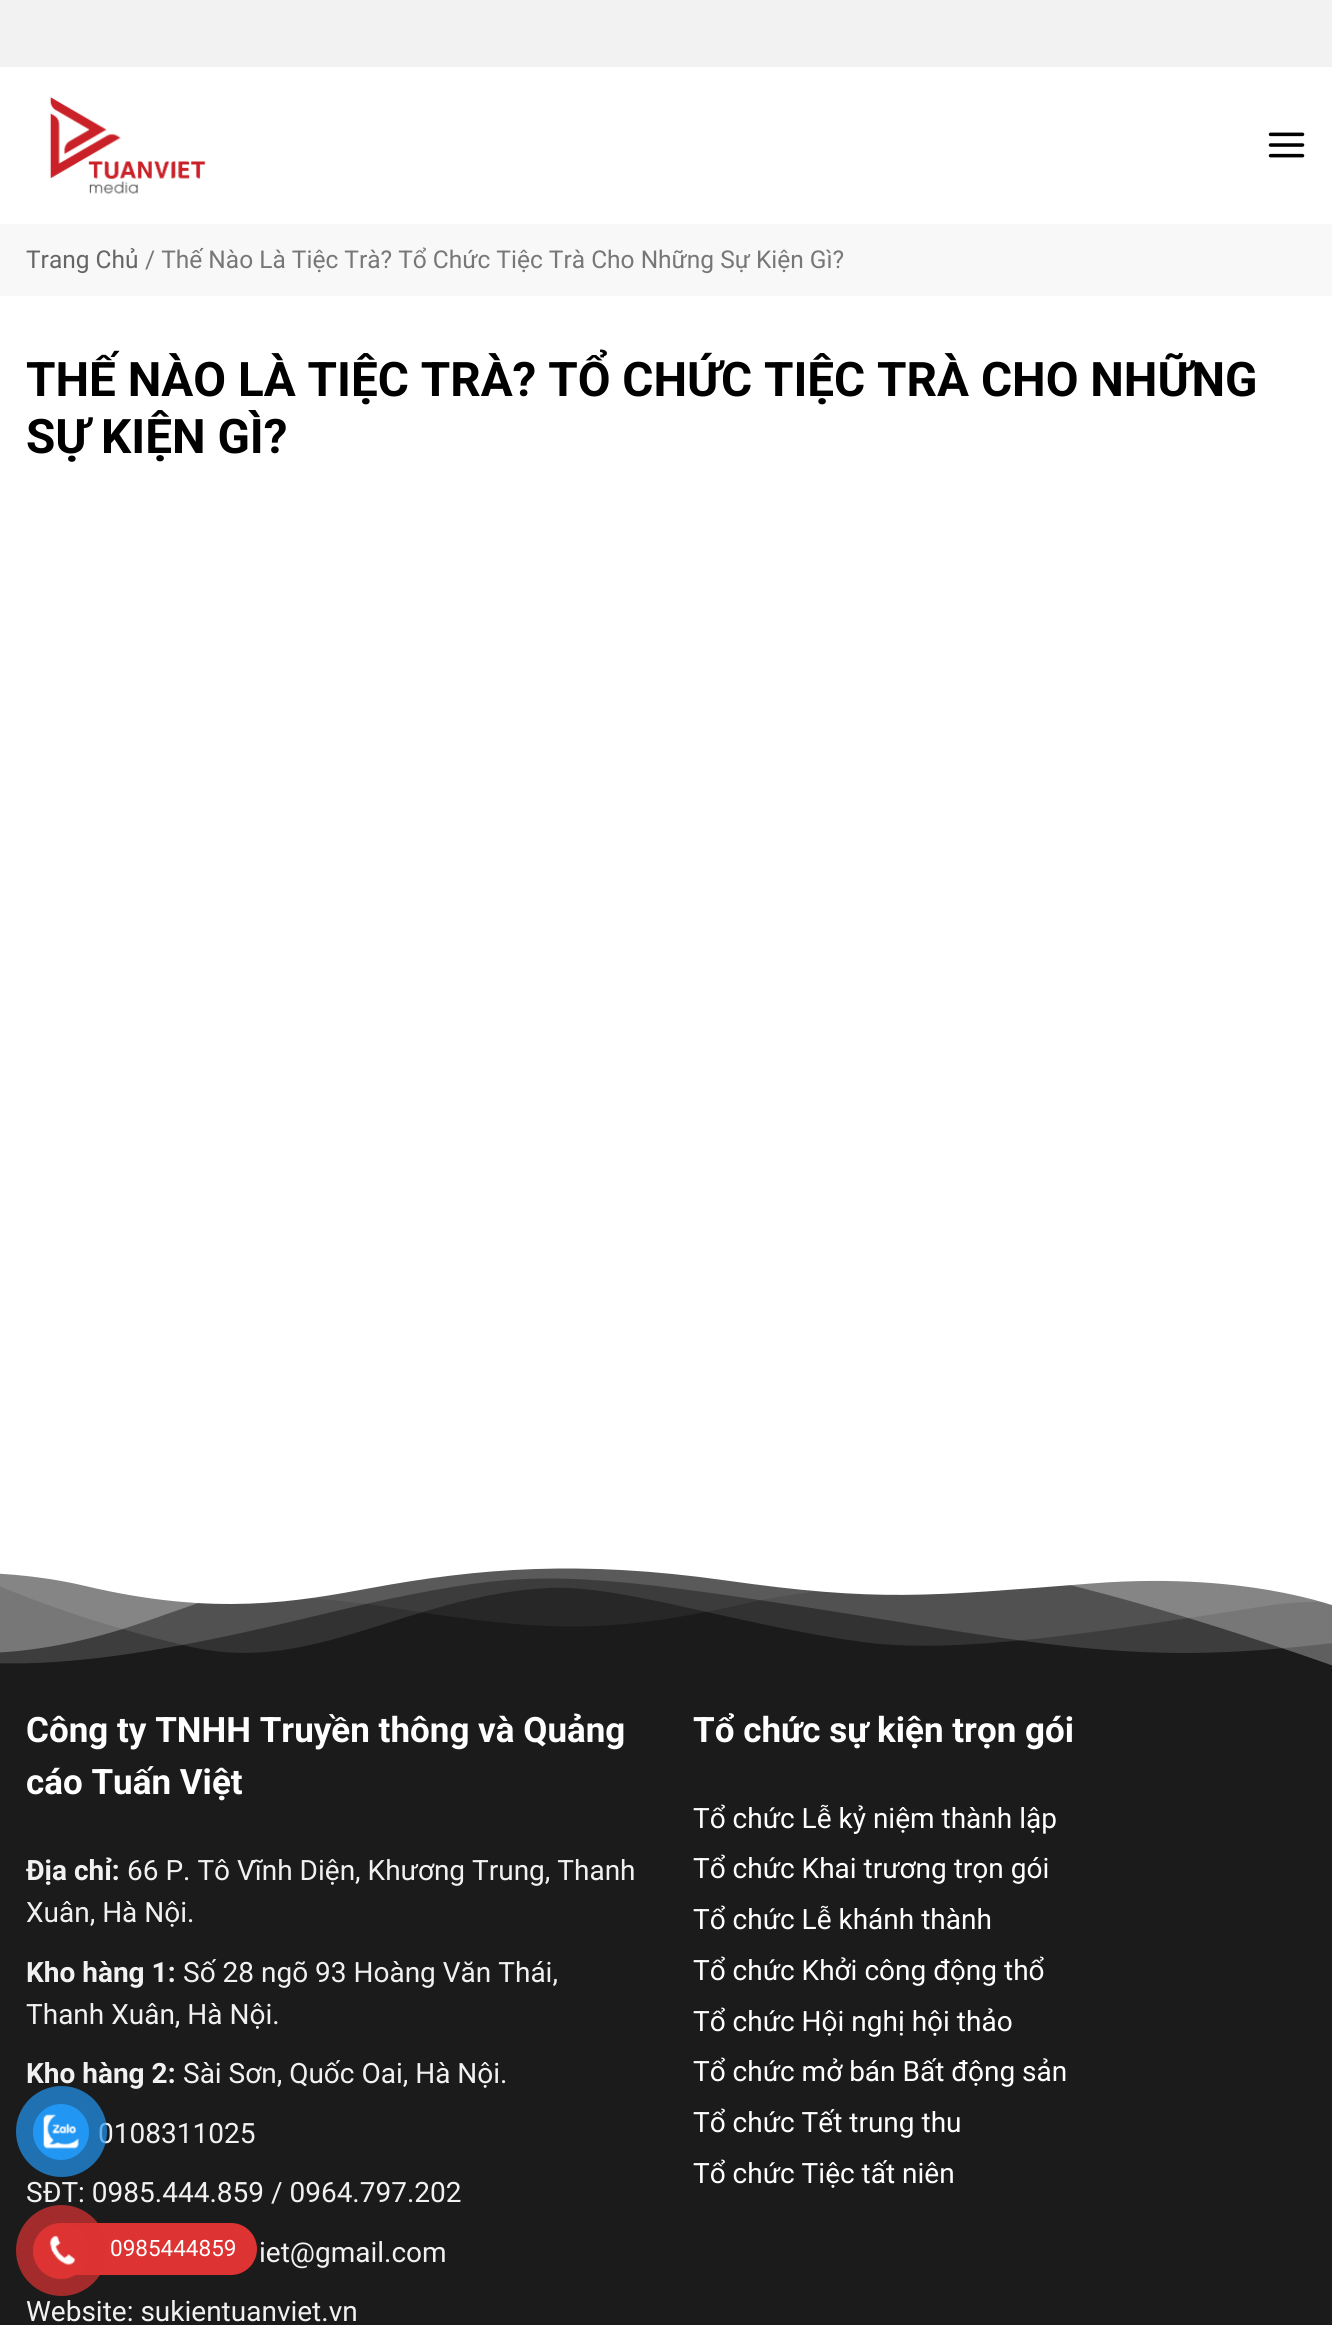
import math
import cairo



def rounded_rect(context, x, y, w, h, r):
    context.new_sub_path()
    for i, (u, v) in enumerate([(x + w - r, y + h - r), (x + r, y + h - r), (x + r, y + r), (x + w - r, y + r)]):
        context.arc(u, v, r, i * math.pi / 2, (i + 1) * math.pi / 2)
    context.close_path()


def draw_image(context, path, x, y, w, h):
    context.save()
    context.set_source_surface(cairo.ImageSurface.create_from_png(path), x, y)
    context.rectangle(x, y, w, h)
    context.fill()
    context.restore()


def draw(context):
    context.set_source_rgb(1, 1, 1)
    context.paint()
    context.set_source_rgb(242 / 255, 242 / 255, 242 / 255)
    context.rectangle(0, 0, 1332, 67)
    context.fill()
    draw_image(context, "images/1.png", 49, 97, 157, 97)
    draw_image(context, "images/2.png", 1268, 132, 37, 26)
    context.set_source_rgb(248 / 255, 248 / 255, 248 / 255)
    context.rectangle(0, 224, 1332, 72)
    context.fill()
    context.set_source_rgb(27 / 255, 27 / 255, 27 / 255)
    context.rectangle(0, 1568, 1332, 757)
    context.fill()
    draw_image(context, "images/3.png", 0, 1563, 1332, 103)
    context.set_source_rgb(221 / 255, 51 / 255, 51 / 255)
    rounded_rect(context, 40, 2223, 217, 52, 26)
    context.fill()
    context.set_source_rgba(221 / 255, 51 / 255, 51 / 255, 0.7)
    context.arc(61.5, 2250.5, 45.5, 0, 2 * math.pi)
    context.fill()
    context.set_source_rgb(221 / 255, 51 / 255, 51 / 255)
    context.arc(61, 2251, 28, 0, 2 * math.pi)
    context.fill()
    draw_image(context, "images/5.png", 49, 2235, 27, 31)
    context.select_font_face("Roboto")
    context.set_font_size(24.5)
    context.set_source_rgb(102 / 255, 102 / 255, 102 / 255)
    context.move_to(26, 268)
    context.show_text("Trang Chủ")
    context.set_source_rgb(119 / 255, 119 / 255, 119 / 255)
    context.move_to(145, 268)
    context.show_text("/ Thế Nào Là Tiệc Trà? Tổ Chức Tiệc Trà Cho Những Sự Kiện Gì?")
    context.select_font_face("Roboto", cairo.FontSlant.NORMAL, cairo.FontWeight.BOLD)
    context.set_font_size(47.6)
    context.set_source_rgb(0, 0, 0)
    context.move_to(26, 396)
    context.show_text("THẾ NÀO LÀ TIỆC TRÀ? TỔ CHỨC TIỆC TRÀ CHO NHỮNG")
    context.move_to(26, 453)
    context.show_text("SỰ KIỆN GÌ?")
    context.set_font_size(35)
    context.set_source_rgb(1, 1, 1)
    context.move_to(26, 1742)
    context.show_text("Công ty TNHH Truyền thông và Quảng")
    context.move_to(26, 1794)
    context.show_text("cáo Tuấn Việt")
    context.set_font_size(28)
    context.set_source_rgb(241 / 255, 241 / 255, 241 / 255)
    context.move_to(26, 1880)
    context.show_text("Địa chỉ:")
    context.select_font_face("Roboto")
    context.move_to(127, 1880)
    context.show_text("66 P. Tô Vĩnh Diện, Khương Trung, Thanh")
    context.move_to(26, 1922)
    context.show_text("Xuân, Hà Nội.")
    context.select_font_face("Roboto", cairo.FontSlant.NORMAL, cairo.FontWeight.BOLD)
    context.move_to(26, 1982)
    context.show_text("Kho hàng 1:")
    context.select_font_face("Roboto")
    context.move_to(183, 1982)
    context.show_text("Số 28 ngõ 93 Hoàng Văn Thái,")
    context.move_to(26, 2024)
    context.show_text("Thanh Xuân, Hà Nội.")
    context.select_font_face("Roboto", cairo.FontSlant.NORMAL, cairo.FontWeight.BOLD)
    context.move_to(26, 2083)
    context.show_text("Kho hàng 2:")
    context.select_font_face("Roboto")
    context.move_to(183, 2083)
    context.show_text("Sài Sơn, Quốc Oai, Hà Nội.")
    context.move_to(98, 2143)
    context.show_text("0108311025")
    context.move_to(26, 2202)
    context.show_text("SĐT: 0985.444.859 / 0964.797.202")
    context.move_to(259, 2262)
    context.show_text("iet@gmail.com")
    context.move_to(26, 2321)
    context.show_text("Website: sukientuanviet.vn")
    context.select_font_face("Roboto", cairo.FontSlant.NORMAL, cairo.FontWeight.BOLD)
    context.set_font_size(35)
    context.set_source_rgb(1, 1, 1)
    context.move_to(693, 1742)
    context.show_text("Tổ chức sự kiện trọn gói")
    context.select_font_face("Roboto")
    context.set_font_size(28)
    context.move_to(693, 1828)
    context.show_text("Tổ chức Lễ kỷ niệm thành lập")
    context.move_to(693, 1878)
    context.show_text("Tổ chức Khai trương trọn gói")
    context.move_to(693, 1929)
    context.show_text("Tổ chức Lễ khánh thành")
    context.move_to(693, 1980)
    context.show_text("Tổ chức Khởi công động thổ")
    context.move_to(693, 2031)
    context.show_text("Tổ chức Hội nghị hội thảo")
    context.move_to(693, 2081)
    context.show_text("Tổ chức mở bán Bất động sản")
    context.move_to(693, 2132)
    context.show_text("Tổ chức Tết trung thu")
    context.move_to(693, 2183)
    context.show_text("Tổ chức Tiệc tất niên")
    context.set_source_rgba(33 / 255, 150 / 255, 243 / 255, 0.7)
    context.new_path()
    context.arc(61.5, 2131.5, 45.5, 0, 2 * math.pi)
    context.fill()
    context.set_source_rgb(33 / 255, 150 / 255, 243 / 255)
    context.arc(61, 2132, 28, 0, 2 * math.pi)
    context.fill()
    draw_image(context, "images/4.png", 43, 2114, 36, 35)
    context.set_font_size(22.5)
    context.set_source_rgb(1, 1, 1)
    context.move_to(110, 2256)
    context.show_text("0985444859")


surface = cairo.ImageSurface(cairo.Format.RGB24, 1332, 2325)
context = cairo.Context(surface)
options = cairo.FontOptions()
options.set_hint_metrics(cairo.HintMetrics.OFF)
options.set_hint_style(cairo.HintStyle.NONE)
context.set_font_options(options)
context.set_miter_limit(4)
draw(context)
surface.write_to_png("out.png")
